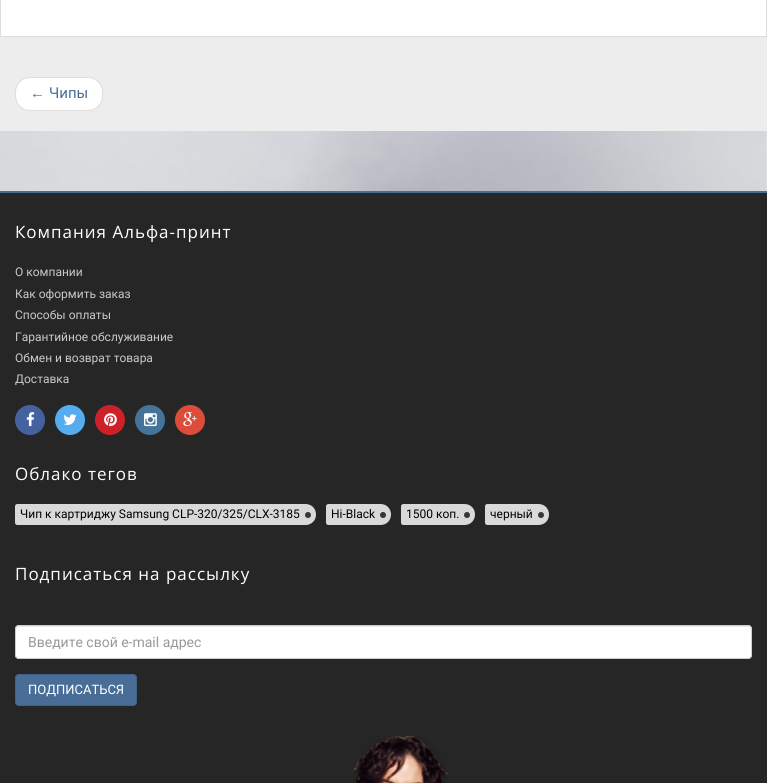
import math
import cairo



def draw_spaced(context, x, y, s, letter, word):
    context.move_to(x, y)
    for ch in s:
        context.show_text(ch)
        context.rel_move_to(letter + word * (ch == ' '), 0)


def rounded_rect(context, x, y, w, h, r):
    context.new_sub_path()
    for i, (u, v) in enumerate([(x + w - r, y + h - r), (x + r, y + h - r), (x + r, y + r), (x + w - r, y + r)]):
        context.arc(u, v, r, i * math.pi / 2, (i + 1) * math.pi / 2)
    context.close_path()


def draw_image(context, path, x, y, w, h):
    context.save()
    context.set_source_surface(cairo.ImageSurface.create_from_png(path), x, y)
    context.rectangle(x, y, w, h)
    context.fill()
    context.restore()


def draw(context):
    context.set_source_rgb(1, 1, 1)
    context.paint()
    draw_image(context, "images/1.png", 0, 131, 767, 60)
    context.set_source_rgb(237 / 255, 237 / 255, 237 / 255)
    context.rectangle(0, 37, 767, 94)
    context.fill()
    context.set_source_rgb(221 / 255, 221 / 255, 221 / 255)
    context.rectangle(766, 0, 1, 37)
    context.fill()
    context.rectangle(0, 36, 767, 1)
    context.fill()
    context.rectangle(0, 0, 1, 37)
    context.fill()
    context.set_source_rgb(1, 1, 1)
    rounded_rect(context, 15.5, 77.5, 87, 33, 14.5)
    context.fill_preserve()
    context.set_source_rgb(221 / 255, 221 / 255, 221 / 255)
    context.set_line_width(1)
    context.stroke()
    context.set_source_rgb(38 / 255, 38 / 255, 38 / 255)
    context.rectangle(0, 193, 767, 590)
    context.fill()
    context.set_source_rgb(72 / 255, 109 / 255, 151 / 255)
    context.rectangle(0, 191, 767, 2)
    context.fill()
    context.set_source_rgb(70 / 255, 98 / 255, 158 / 255)
    context.arc(30, 420, 15, 0, 2 * math.pi)
    context.fill()
    draw_image(context, "images/2.png", 26, 412, 9, 15)
    context.set_source_rgb(85 / 255, 172 / 255, 238 / 255)
    context.arc(70, 420, 15, 0, 2 * math.pi)
    context.fill()
    draw_image(context, "images/3.png", 63, 414, 14, 11)
    context.set_source_rgb(205 / 255, 33 / 255, 41 / 255)
    context.arc(110, 420, 15, 0, 2 * math.pi)
    context.fill()
    draw_image(context, "images/4.png", 104, 413, 13, 14)
    context.set_source_rgb(69 / 255, 115 / 255, 153 / 255)
    context.arc(150, 420, 15, 0, 2 * math.pi)
    context.fill()
    draw_image(context, "images/5.png", 144, 413, 13, 14)
    context.set_source_rgb(221 / 255, 75 / 255, 57 / 255)
    context.arc(190, 420, 15, 0, 2 * math.pi)
    context.fill()
    draw_image(context, "images/6.png", 183, 412, 14, 15)
    context.set_source_rgb(217 / 255, 217 / 255, 217 / 255)
    context.new_path()
    context.move_to(17.5, 504)
    context.line_to(305.5, 504)
    context.curve_to(311.5, 504, 316, 508.5, 316, 514.5)
    context.curve_to(316, 520.5, 311.5, 525, 305.5, 525)
    context.line_to(17.5, 525)
    context.curve_to(16, 525, 15, 524, 15, 522.5)
    context.line_to(15, 506.5)
    context.curve_to(15, 505, 16, 504, 17.5, 504)
    context.close_path()
    context.fill()
    context.set_source_rgb(54 / 255, 54 / 255, 54 / 255)
    context.arc(308, 515, 3, 0, 2 * math.pi)
    context.fill()
    context.set_source_rgb(217 / 255, 217 / 255, 217 / 255)
    context.new_path()
    context.move_to(328.5, 504)
    context.line_to(380.5, 504)
    context.curve_to(386.5, 504, 391, 508.5, 391, 514.5)
    context.curve_to(391, 520.5, 386.5, 525, 380.5, 525)
    context.line_to(328.5, 525)
    context.curve_to(327, 525, 326, 524, 326, 522.5)
    context.line_to(326, 506.5)
    context.curve_to(326, 505, 327, 504, 328.5, 504)
    context.close_path()
    context.fill()
    context.set_source_rgb(54 / 255, 54 / 255, 54 / 255)
    context.arc(383, 515, 3, 0, 2 * math.pi)
    context.fill()
    context.set_source_rgb(217 / 255, 217 / 255, 217 / 255)
    context.new_path()
    context.move_to(403.5, 504)
    context.line_to(464.5, 504)
    context.curve_to(470.5, 504, 475, 508.5, 475, 514.5)
    context.curve_to(475, 520.5, 470.5, 525, 464.5, 525)
    context.line_to(403.5, 525)
    context.curve_to(402, 525, 401, 524, 401, 522.5)
    context.line_to(401, 506.5)
    context.curve_to(401, 505, 402, 504, 403.5, 504)
    context.close_path()
    context.fill()
    context.set_source_rgb(54 / 255, 54 / 255, 54 / 255)
    context.arc(467, 515, 3, 0, 2 * math.pi)
    context.fill()
    context.set_source_rgb(217 / 255, 217 / 255, 217 / 255)
    context.new_path()
    context.move_to(487.5, 504)
    context.line_to(538.5, 504)
    context.curve_to(544.5, 504, 549, 508.5, 549, 514.5)
    context.curve_to(549, 520.5, 544.5, 525, 538.5, 525)
    context.line_to(487.5, 525)
    context.curve_to(486, 525, 485, 524, 485, 522.5)
    context.line_to(485, 506.5)
    context.curve_to(485, 505, 486, 504, 487.5, 504)
    context.close_path()
    context.fill()
    context.set_source_rgb(54 / 255, 54 / 255, 54 / 255)
    context.arc(541, 515, 3, 0, 2 * math.pi)
    context.fill()
    context.set_source_rgb(1, 1, 1)
    rounded_rect(context, 15, 625, 737, 34, 4)
    context.fill()
    context.set_source_rgb(236 / 255, 236 / 255, 236 / 255)
    context.new_path()
    context.move_to(19, 627)
    context.line_to(748, 627)
    context.curve_to(750, 627, 751, 628, 751, 630)
    context.curve_to(751, 628, 750, 626, 748, 626)
    context.line_to(19, 626)
    context.curve_to(17, 626, 16, 628, 16, 630)
    context.curve_to(16, 628, 17, 627, 19, 627)
    context.close_path()
    context.fill()
    rounded_rect(context, 15.5, 625.5, 736, 33, 3.5)
    context.set_source_rgb(204 / 255, 204 / 255, 204 / 255)
    context.stroke()
    context.set_source_rgb(72 / 255, 109 / 255, 151 / 255)
    rounded_rect(context, 15.5, 674.5, 121, 31, 3.5)
    context.fill_preserve()
    context.set_source_rgb(65 / 255, 98 / 255, 136 / 255)
    context.stroke()
    draw_image(context, "images/7.png", 353, 736, 95, 47)
    context.select_font_face("Liberation Sans")
    context.set_font_size(15)
    context.set_source_rgb(72 / 255, 109 / 255, 151 / 255)
    context.move_to(30, 98)
    context.show_text("←")
    context.select_font_face("Roboto")
    context.move_to(49, 98)
    context.show_text("Чипы")
    context.select_font_face("Open Sans")
    context.set_font_size(17)
    context.set_source_rgb(1, 1, 1)
    draw_spaced(context, 15, 238, "Компания Альфа-принт", 1, 0)
    context.select_font_face("Roboto")
    context.set_font_size(12)
    context.set_source_rgb(201 / 255, 201 / 255, 201 / 255)
    context.move_to(15, 276)
    context.show_text("О компании")
    context.move_to(15, 298)
    context.show_text("Как оформить заказ")
    context.move_to(15, 319)
    context.show_text("Способы оплаты")
    context.move_to(15, 341)
    context.show_text("Гарантийное обслуживание")
    context.move_to(15, 362)
    context.show_text("Обмен и возврат товара")
    context.move_to(15, 383)
    context.show_text("Доставка")
    context.select_font_face("Open Sans")
    context.set_font_size(17)
    context.set_source_rgb(1, 1, 1)
    draw_spaced(context, 15, 480, "Облако тегов", 1, 0)
    context.select_font_face("Roboto")
    context.set_font_size(12)
    context.set_source_rgb(0, 0, 0)
    context.move_to(20, 518)
    context.show_text("Чип к картриджу Samsung CLP-320/325/CLX-3185")
    context.move_to(331, 518)
    context.show_text("Hi-Black")
    context.move_to(406, 518)
    context.show_text("1500 коп.")
    context.move_to(490, 518)
    context.show_text("черный")
    context.select_font_face("Open Sans")
    context.set_font_size(17)
    context.set_source_rgb(1, 1, 1)
    draw_spaced(context, 15, 580, "Подписаться на рассылку", 1, 0)
    context.select_font_face("Roboto")
    context.set_font_size(14)
    context.set_source_rgb(153 / 255, 153 / 255, 153 / 255)
    context.move_to(28, 647)
    context.show_text("Введите свой e-mail адрес")
    context.set_font_size(13)
    context.set_source_rgb(1, 1, 1)
    context.move_to(28, 694)
    context.show_text("ПОДПИСАТЬСЯ")


surface = cairo.ImageSurface(cairo.Format.RGB24, 767, 783)
context = cairo.Context(surface)
options = cairo.FontOptions()
options.set_hint_metrics(cairo.HintMetrics.OFF)
options.set_hint_style(cairo.HintStyle.NONE)
context.set_font_options(options)
context.set_miter_limit(4)
draw(context)
surface.write_to_png("out.png")
